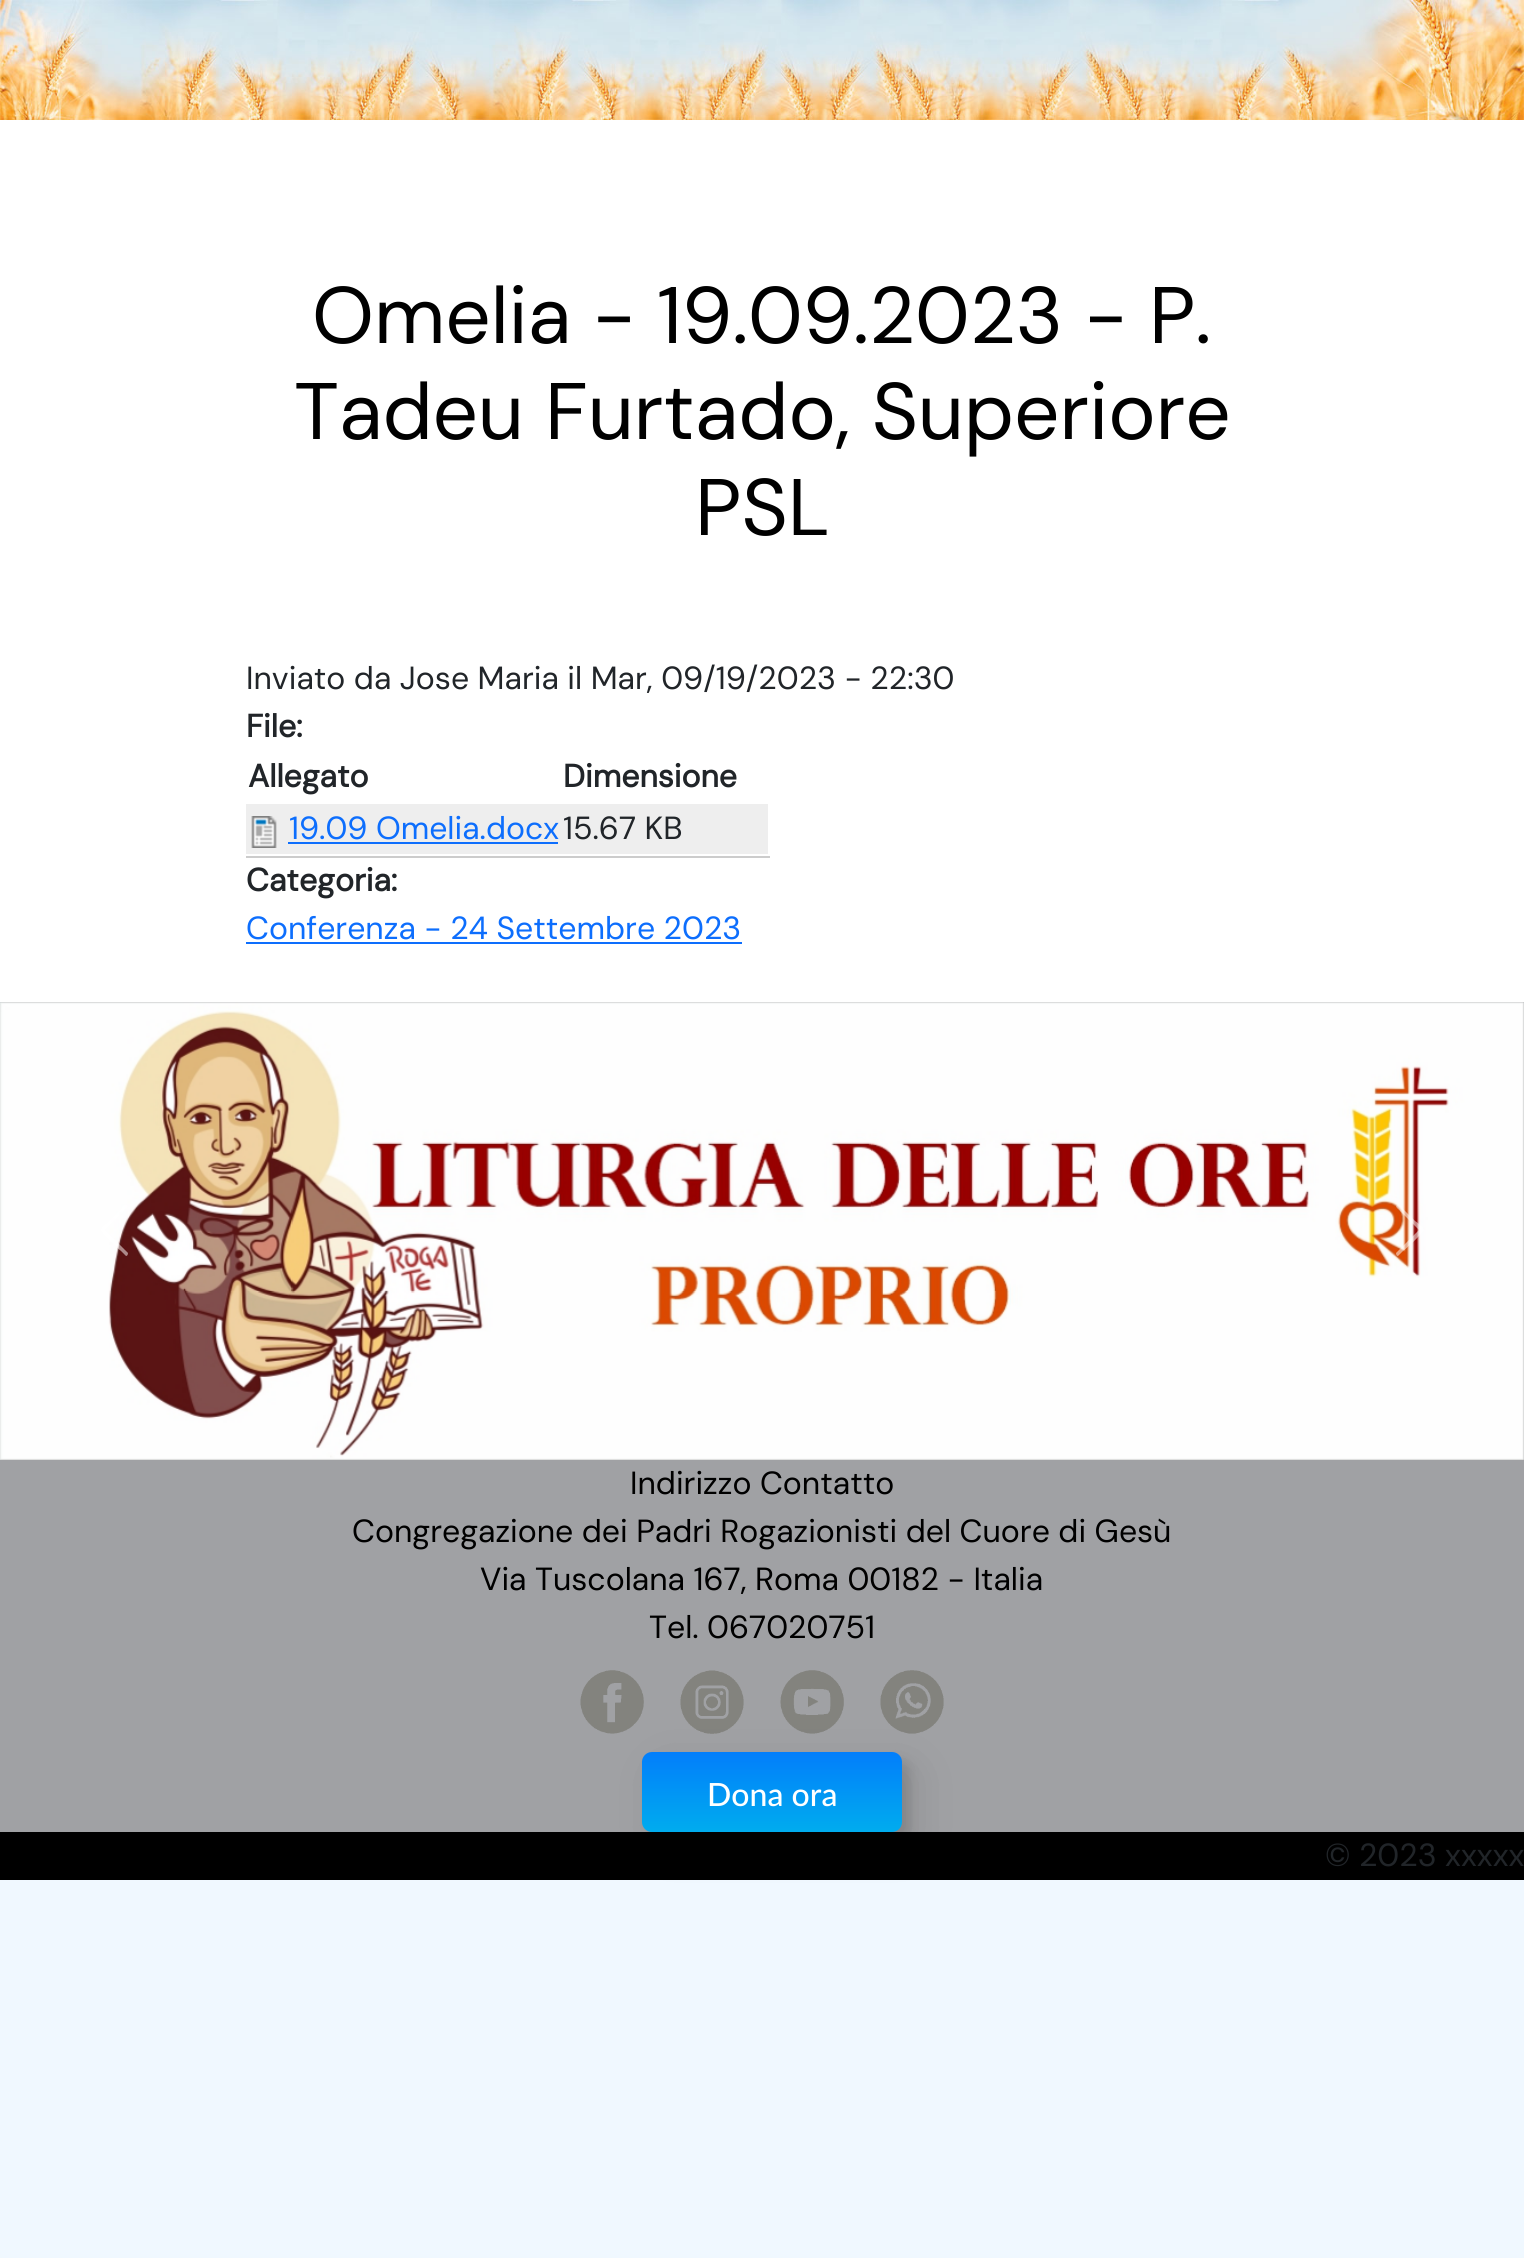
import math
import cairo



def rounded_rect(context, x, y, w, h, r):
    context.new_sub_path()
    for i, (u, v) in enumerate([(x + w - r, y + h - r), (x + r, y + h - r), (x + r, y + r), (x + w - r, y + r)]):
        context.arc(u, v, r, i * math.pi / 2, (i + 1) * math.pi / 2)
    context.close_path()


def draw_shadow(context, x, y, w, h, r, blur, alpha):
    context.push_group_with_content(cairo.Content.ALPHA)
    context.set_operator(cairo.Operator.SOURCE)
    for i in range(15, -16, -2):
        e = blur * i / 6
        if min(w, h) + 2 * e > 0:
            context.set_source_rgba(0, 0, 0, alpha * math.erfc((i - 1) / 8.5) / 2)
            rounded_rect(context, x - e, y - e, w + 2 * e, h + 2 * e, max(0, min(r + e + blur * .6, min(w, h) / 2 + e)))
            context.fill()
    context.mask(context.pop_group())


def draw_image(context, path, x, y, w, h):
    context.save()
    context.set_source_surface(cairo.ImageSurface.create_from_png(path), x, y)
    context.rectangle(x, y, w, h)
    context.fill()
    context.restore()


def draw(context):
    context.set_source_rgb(240 / 255, 248 / 255, 1)
    context.paint()
    draw_image(context, "images/1.png", 0, 0, 1524, 120)
    context.set_source_rgb(1, 1, 1)
    context.rectangle(0, 120, 1524, 882)
    context.fill()
    context.set_source_rgb(238 / 255, 238 / 255, 238 / 255)
    context.rectangle(246, 804, 522, 50)
    context.fill()
    context.set_source_rgb(204 / 255, 204 / 255, 204 / 255)
    context.rectangle(246, 856, 524, 2)
    context.fill()
    draw_image(context, "images/2.png", 251, 816, 26, 32)
    context.set_source_rgb(13 / 255, 110 / 255, 253 / 255)
    context.rectangle(288, 842, 270, 2)
    context.fill()
    context.rectangle(246, 942, 496, 2)
    context.fill()
    context.set_source_rgb(160 / 255, 161 / 255, 164 / 255)
    context.rectangle(0, 1002, 1524, 830)
    context.fill()
    draw_image(context, "images/3.png", 0, 1002, 1524, 458)
    context.set_source_rgba(1, 1, 1, 0.5)
    context.new_path()
    context.move_to(127, 1205)
    context.curve_to(130, 1207, 124, 1210, 124, 1211)
    context.line_to(105, 1230)
    context.line_to(128, 1253)
    context.curve_to(128, 1255, 127, 1256, 126, 1256)
    context.line_to(121, 1251)
    context.curve_to(118, 1249, 100, 1232, 100, 1230)
    context.curve_to(100, 1228, 107, 1222, 109, 1221)
    context.line_to(121, 1209)
    context.curve_to(121, 1208, 125, 1202, 127, 1205)
    context.close_path()
    context.fill()
    context.new_path()
    context.move_to(1397, 1205)
    context.curve_to(1399, 1202, 1403, 1208, 1403, 1209)
    context.line_to(1415, 1221)
    context.curve_to(1417, 1222, 1424, 1228, 1424, 1230)
    context.curve_to(1424, 1232, 1406, 1249, 1403, 1251)
    context.line_to(1398, 1256)
    context.curve_to(1397, 1256, 1396, 1255, 1396, 1253)
    context.line_to(1419, 1230)
    context.line_to(1400, 1211)
    context.curve_to(1400, 1210, 1394, 1207, 1397, 1205)
    context.close_path()
    context.fill()
    draw_image(context, "images/4.png", 580, 1670, 64, 64)
    draw_image(context, "images/5.png", 680, 1670, 64, 64)
    draw_image(context, "images/6.png", 780, 1670, 64, 64)
    draw_image(context, "images/7.png", 880, 1670, 64, 64)
    context.set_source_rgb(0, 0, 0)
    context.rectangle(0, 1832, 1524, 48)
    context.fill()
    context.set_source_rgb(0, 0, 0)
    draw_shadow(context, 650, 1760, 260, 80, 10, 5, 0.1)
    draw_shadow(context, 656, 1766, 260, 80, 10, 20, 0.1)
    gradient = cairo.LinearGradient(772, 1832, 772, 1752)
    gradient.add_color_stop_rgba(0, 0, 172 / 255, 238 / 255, 1)
    gradient.add_color_stop_rgba(1, 2 / 255, 126 / 255, 251 / 255, 1)
    context.set_source(gradient)
    rounded_rect(context, 642, 1752, 260, 80, 10)
    context.fill()
    context.select_font_face("DM Sans")
    context.set_font_size(80)
    context.set_source_rgb(0, 0, 0)
    context.move_to(312, 343)
    context.show_text("Omelia - 19.09.2023 - P.")
    context.move_to(294, 439)
    context.show_text("Tadeu Furtado, Superiore")
    context.move_to(695, 535)
    context.show_text("PSL")
    context.set_font_size(32)
    context.set_source_rgb(33 / 255, 37 / 255, 41 / 255)
    context.move_to(246, 689)
    context.show_text("Inviato da Jose Maria il Mar, 09/19/2023 - 22:30")
    context.select_font_face("DM Sans", cairo.FontSlant.NORMAL, cairo.FontWeight.BOLD)
    context.move_to(246, 737)
    context.show_text("File:")
    context.move_to(248, 787)
    context.show_text("Allegato")
    context.move_to(563, 787)
    context.show_text("Dimensione")
    context.select_font_face("DM Sans")
    context.set_source_rgb(13 / 255, 110 / 255, 253 / 255)
    context.move_to(289, 839)
    context.show_text("19.09 Omelia.docx")
    context.set_source_rgb(33 / 255, 37 / 255, 41 / 255)
    context.move_to(563, 839)
    context.show_text("15.67 KB")
    context.select_font_face("DM Sans", cairo.FontSlant.NORMAL, cairo.FontWeight.BOLD)
    context.move_to(246, 891)
    context.show_text("Categoria:")
    context.select_font_face("DM Sans")
    context.set_source_rgb(13 / 255, 110 / 255, 253 / 255)
    context.move_to(246, 939)
    context.show_text("Conferenza - 24 Settembre 2023")
    context.set_source_rgb(0, 0, 0)
    context.move_to(630, 1494)
    context.show_text("Indirizzo Contatto")
    context.move_to(352, 1542)
    context.show_text("Congregazione dei Padri Rogazionisti del Cuore di Gesù")
    context.move_to(480, 1590)
    context.show_text("Via Tuscolana 167, Roma 00182 - Italia")
    context.move_to(649, 1638)
    context.show_text("Tel. 067020751")
    context.select_font_face("Lato Medium")
    context.set_source_rgb(1, 1, 1)
    context.move_to(707, 1806)
    context.show_text("Dona ora")
    context.select_font_face("DM Sans")
    context.set_source_rgb(33 / 255, 37 / 255, 41 / 255)
    context.move_to(1325, 1866)
    context.show_text("© 2023 xxxxx")


surface = cairo.ImageSurface(cairo.Format.RGB24, 1524, 2258)
context = cairo.Context(surface)
options = cairo.FontOptions()
options.set_hint_metrics(cairo.HintMetrics.OFF)
options.set_hint_style(cairo.HintStyle.NONE)
context.set_font_options(options)
context.set_miter_limit(4)
draw(context)
surface.write_to_png("out.png")
